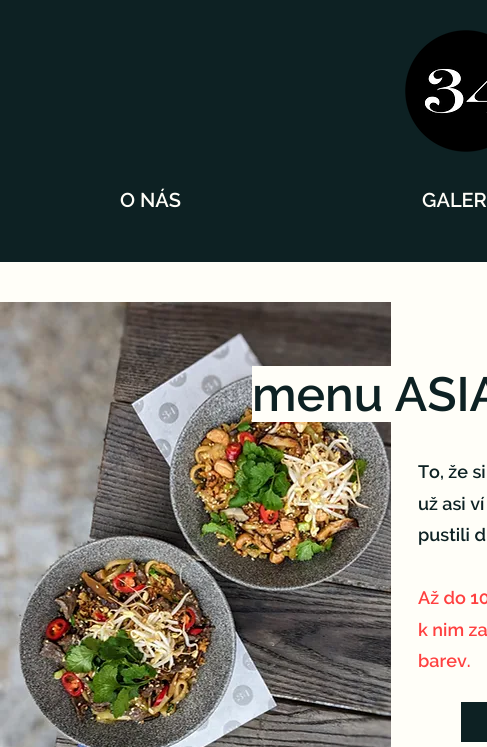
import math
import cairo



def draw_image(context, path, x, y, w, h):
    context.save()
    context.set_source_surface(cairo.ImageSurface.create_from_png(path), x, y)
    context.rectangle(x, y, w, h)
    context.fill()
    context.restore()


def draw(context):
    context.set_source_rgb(1, 254 / 255, 248 / 255)
    context.paint()
    context.set_source_rgb(13 / 255, 33 / 255, 35 / 255)
    context.rectangle(0, 0, 487, 262)
    context.fill()
    draw_image(context, "images/1.png", 405, 30, 82, 122)
    draw_image(context, "images/2.png", 0, 302, 391, 445)
    context.set_source_rgb(1, 254 / 255, 248 / 255)
    context.rectangle(252, 366, 139, 56)
    context.fill()
    context.set_source_rgb(13 / 255, 33 / 255, 35 / 255)
    context.rectangle(461, 702, 26, 40)
    context.fill()
    context.select_font_face("Raleway SemiBold")
    context.set_font_size(20)
    context.set_source_rgb(1, 254 / 255, 248 / 255)
    context.move_to(120, 207)
    context.show_text("O NÁS")
    context.move_to(422, 207)
    context.show_text("GALER")
    context.set_font_size(48)
    context.set_source_rgb(13 / 255, 33 / 255, 35 / 255)
    context.move_to(252, 411)
    context.show_text("menu ASIA")
    context.set_font_size(18)
    context.move_to(418, 478)
    context.show_text("To, že si")
    context.move_to(418, 510)
    context.show_text("už asi ví")
    context.move_to(418, 541)
    context.show_text("pustili d")
    context.set_source_rgb(1, 64 / 255, 64 / 255)
    context.move_to(418, 604)
    context.show_text("Až do 10")
    context.move_to(418, 636)
    context.show_text("k nim za")
    context.move_to(418, 667)
    context.show_text("barev.")


surface = cairo.ImageSurface(cairo.Format.RGB24, 487, 747)
context = cairo.Context(surface)
options = cairo.FontOptions()
options.set_hint_metrics(cairo.HintMetrics.OFF)
options.set_hint_style(cairo.HintStyle.NONE)
context.set_font_options(options)
context.set_miter_limit(4)
draw(context)
surface.write_to_png("out.png")
